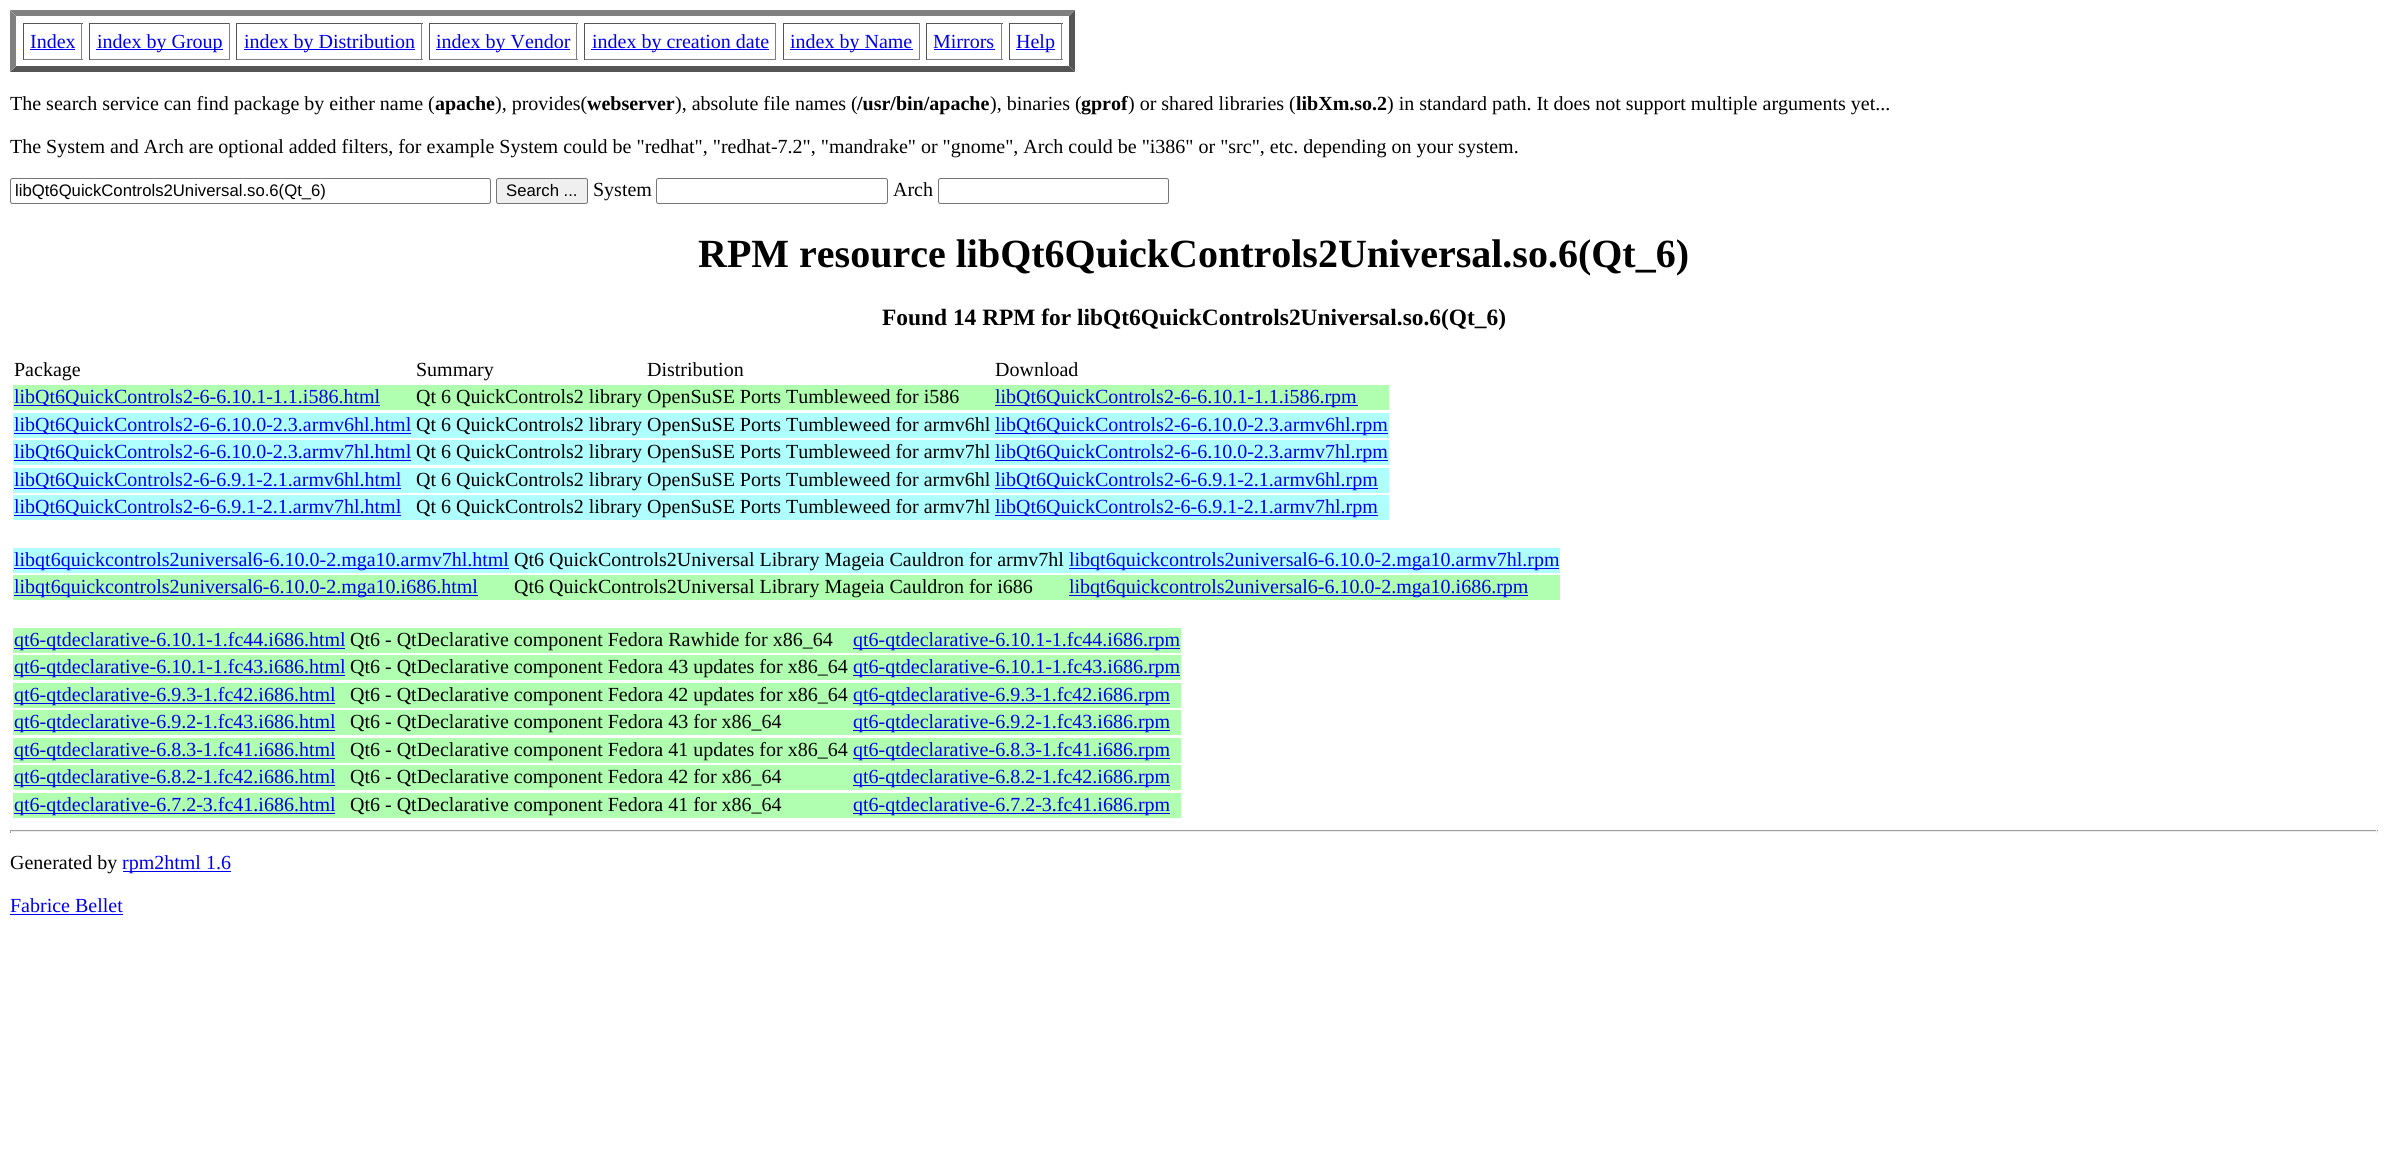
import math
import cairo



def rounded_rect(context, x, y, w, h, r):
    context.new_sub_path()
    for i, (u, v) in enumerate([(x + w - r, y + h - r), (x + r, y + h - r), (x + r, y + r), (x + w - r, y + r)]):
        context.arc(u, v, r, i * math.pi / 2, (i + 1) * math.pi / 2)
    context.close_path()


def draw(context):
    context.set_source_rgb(1, 1, 1)
    context.paint()
    context.set_source_rgb(128 / 255, 128 / 255, 128 / 255)
    context.new_path()
    context.move_to(10, 10)
    context.line_to(1075, 10)
    context.line_to(1069, 16)
    context.line_to(16, 16)
    context.close_path()
    context.fill()
    context.set_source_rgb(85 / 255, 85 / 255, 85 / 255)
    context.new_path()
    context.move_to(1075, 10)
    context.line_to(1075, 72)
    context.line_to(1069, 66)
    context.line_to(1069, 16)
    context.close_path()
    context.fill()
    context.new_path()
    context.move_to(1075, 72)
    context.line_to(10, 72)
    context.line_to(16, 66)
    context.line_to(1069, 66)
    context.close_path()
    context.fill()
    context.set_source_rgb(128 / 255, 128 / 255, 128 / 255)
    context.new_path()
    context.move_to(10, 72)
    context.line_to(10, 10)
    context.line_to(16, 16)
    context.line_to(16, 66)
    context.close_path()
    context.fill()
    context.set_source_rgb(85 / 255, 85 / 255, 85 / 255)
    context.rectangle(23, 23, 60, 1)
    context.fill()
    context.set_source_rgb(128 / 255, 128 / 255, 128 / 255)
    context.rectangle(81, 23, 1, 37)
    context.fill()
    context.rectangle(23, 59, 60, 1)
    context.fill()
    context.set_source_rgb(85 / 255, 85 / 255, 85 / 255)
    context.rectangle(23, 23, 1, 37)
    context.fill()
    context.set_source_rgb(0, 0, 238 / 255)
    context.rectangle(30, 49, 45, 1)
    context.fill()
    context.set_source_rgb(85 / 255, 85 / 255, 85 / 255)
    context.rectangle(89, 23, 141, 1)
    context.fill()
    context.set_source_rgb(128 / 255, 128 / 255, 128 / 255)
    context.rectangle(229, 23, 1, 37)
    context.fill()
    context.rectangle(89, 59, 141, 1)
    context.fill()
    context.set_source_rgb(85 / 255, 85 / 255, 85 / 255)
    context.rectangle(89, 23, 1, 37)
    context.fill()
    context.set_source_rgb(0, 0, 238 / 255)
    context.rectangle(96, 49, 127, 1)
    context.fill()
    context.set_source_rgb(85 / 255, 85 / 255, 85 / 255)
    context.rectangle(236, 23, 187, 1)
    context.fill()
    context.set_source_rgb(128 / 255, 128 / 255, 128 / 255)
    context.rectangle(421, 23, 1, 37)
    context.fill()
    context.rectangle(236, 59, 187, 1)
    context.fill()
    context.set_source_rgb(85 / 255, 85 / 255, 85 / 255)
    context.rectangle(236, 23, 1, 37)
    context.fill()
    context.set_source_rgb(0, 0, 238 / 255)
    context.rectangle(244, 49, 171, 1)
    context.fill()
    context.set_source_rgb(85 / 255, 85 / 255, 85 / 255)
    context.rectangle(429, 23, 149, 1)
    context.fill()
    context.set_source_rgb(128 / 255, 128 / 255, 128 / 255)
    context.rectangle(576, 23, 1, 37)
    context.fill()
    context.rectangle(429, 59, 149, 1)
    context.fill()
    context.set_source_rgb(85 / 255, 85 / 255, 85 / 255)
    context.rectangle(429, 23, 1, 37)
    context.fill()
    context.set_source_rgb(0, 0, 238 / 255)
    context.rectangle(436, 49, 134, 1)
    context.fill()
    context.set_source_rgb(85 / 255, 85 / 255, 85 / 255)
    context.rectangle(584, 23, 192, 1)
    context.fill()
    context.set_source_rgb(128 / 255, 128 / 255, 128 / 255)
    context.rectangle(775, 23, 1, 37)
    context.fill()
    context.rectangle(584, 59, 192, 1)
    context.fill()
    context.set_source_rgb(85 / 255, 85 / 255, 85 / 255)
    context.rectangle(584, 23, 1, 37)
    context.fill()
    context.set_source_rgb(0, 0, 238 / 255)
    context.rectangle(591, 49, 178, 1)
    context.fill()
    context.set_source_rgb(85 / 255, 85 / 255, 85 / 255)
    context.rectangle(783, 23, 137, 1)
    context.fill()
    context.set_source_rgb(128 / 255, 128 / 255, 128 / 255)
    context.rectangle(919, 23, 1, 37)
    context.fill()
    context.rectangle(783, 59, 137, 1)
    context.fill()
    context.set_source_rgb(85 / 255, 85 / 255, 85 / 255)
    context.rectangle(783, 23, 1, 37)
    context.fill()
    context.set_source_rgb(0, 0, 238 / 255)
    context.rectangle(790, 49, 123, 1)
    context.fill()
    context.set_source_rgb(85 / 255, 85 / 255, 85 / 255)
    context.rectangle(926, 23, 77, 1)
    context.fill()
    context.set_source_rgb(128 / 255, 128 / 255, 128 / 255)
    context.rectangle(1001, 23, 1, 37)
    context.fill()
    context.rectangle(926, 59, 77, 1)
    context.fill()
    context.set_source_rgb(85 / 255, 85 / 255, 85 / 255)
    context.rectangle(926, 23, 1, 37)
    context.fill()
    context.set_source_rgb(0, 0, 238 / 255)
    context.rectangle(934, 49, 61, 1)
    context.fill()
    context.set_source_rgb(85 / 255, 85 / 255, 85 / 255)
    context.rectangle(1009, 23, 54, 1)
    context.fill()
    context.set_source_rgb(128 / 255, 128 / 255, 128 / 255)
    context.rectangle(1061, 23, 1, 37)
    context.fill()
    context.rectangle(1009, 59, 54, 1)
    context.fill()
    context.set_source_rgb(85 / 255, 85 / 255, 85 / 255)
    context.rectangle(1009, 23, 1, 37)
    context.fill()
    context.set_source_rgb(0, 0, 238 / 255)
    context.rectangle(1016, 49, 39, 1)
    context.fill()
    rounded_rect(context, 10.5, 178.5, 480, 25, 2)
    context.set_source_rgb(118 / 255, 118 / 255, 118 / 255)
    context.set_line_width(1)
    context.stroke()
    context.set_source_rgb(239 / 255, 239 / 255, 239 / 255)
    rounded_rect(context, 496.5, 178.5, 91, 25, 2)
    context.fill_preserve()
    context.set_source_rgb(118 / 255, 118 / 255, 118 / 255)
    context.stroke()
    rounded_rect(context, 656.5, 178.5, 231, 25, 2)
    context.stroke()
    rounded_rect(context, 938.5, 178.5, 230, 25, 2)
    context.stroke()
    context.set_source_rgb(176 / 255, 1, 176 / 255)
    context.rectangle(13, 385, 1376, 25)
    context.fill()
    context.set_source_rgb(0, 0, 238 / 255)
    context.rectangle(14, 405, 366, 1)
    context.fill()
    context.rectangle(995, 405, 363, 1)
    context.fill()
    context.set_source_rgb(176 / 255, 1, 1)
    context.rectangle(13, 413, 1376, 25)
    context.fill()
    context.set_source_rgb(0, 0, 238 / 255)
    context.rectangle(14, 433, 397, 1)
    context.fill()
    context.rectangle(995, 433, 393, 1)
    context.fill()
    context.set_source_rgb(176 / 255, 1, 1)
    context.rectangle(13, 440, 1376, 25)
    context.fill()
    context.set_source_rgb(0, 0, 238 / 255)
    context.rectangle(14, 460, 397, 1)
    context.fill()
    context.rectangle(995, 460, 393, 1)
    context.fill()
    context.set_source_rgb(176 / 255, 1, 1)
    context.rectangle(13, 468, 1376, 25)
    context.fill()
    context.set_source_rgb(0, 0, 238 / 255)
    context.rectangle(14, 488, 387, 1)
    context.fill()
    context.rectangle(995, 488, 383, 1)
    context.fill()
    context.set_source_rgb(176 / 255, 1, 1)
    context.rectangle(13, 495, 1376, 25)
    context.fill()
    context.set_source_rgb(0, 0, 238 / 255)
    context.rectangle(14, 515, 387, 1)
    context.fill()
    context.rectangle(995, 515, 383, 1)
    context.fill()
    context.set_source_rgb(176 / 255, 1, 1)
    context.rectangle(13, 548, 1547, 25)
    context.fill()
    context.set_source_rgb(0, 0, 238 / 255)
    context.rectangle(14, 568, 495, 1)
    context.fill()
    context.rectangle(1069, 568, 490, 1)
    context.fill()
    context.set_source_rgb(176 / 255, 1, 176 / 255)
    context.rectangle(13, 575, 1547, 25)
    context.fill()
    context.set_source_rgb(0, 0, 238 / 255)
    context.rectangle(14, 595, 464, 1)
    context.fill()
    context.rectangle(1069, 595, 459, 1)
    context.fill()
    context.set_source_rgb(176 / 255, 1, 176 / 255)
    context.rectangle(13, 628, 1168, 25)
    context.fill()
    context.set_source_rgb(0, 0, 238 / 255)
    context.rectangle(14, 648, 331, 1)
    context.fill()
    context.rectangle(853, 648, 327, 1)
    context.fill()
    context.set_source_rgb(176 / 255, 1, 176 / 255)
    context.rectangle(13, 655, 1168, 25)
    context.fill()
    context.set_source_rgb(0, 0, 238 / 255)
    context.rectangle(14, 675, 331, 1)
    context.fill()
    context.rectangle(853, 675, 327, 1)
    context.fill()
    context.set_source_rgb(176 / 255, 1, 176 / 255)
    context.rectangle(13, 683, 1168, 25)
    context.fill()
    context.set_source_rgb(0, 0, 238 / 255)
    context.rectangle(14, 703, 321, 1)
    context.fill()
    context.rectangle(853, 703, 317, 1)
    context.fill()
    context.set_source_rgb(176 / 255, 1, 176 / 255)
    context.rectangle(13, 710, 1168, 25)
    context.fill()
    context.set_source_rgb(0, 0, 238 / 255)
    context.rectangle(14, 730, 321, 1)
    context.fill()
    context.rectangle(853, 730, 317, 1)
    context.fill()
    context.set_source_rgb(176 / 255, 1, 176 / 255)
    context.rectangle(13, 738, 1168, 25)
    context.fill()
    context.set_source_rgb(0, 0, 238 / 255)
    context.rectangle(14, 758, 321, 1)
    context.fill()
    context.rectangle(853, 758, 317, 1)
    context.fill()
    context.set_source_rgb(176 / 255, 1, 176 / 255)
    context.rectangle(13, 765, 1168, 25)
    context.fill()
    context.set_source_rgb(0, 0, 238 / 255)
    context.rectangle(14, 785, 321, 1)
    context.fill()
    context.rectangle(853, 785, 317, 1)
    context.fill()
    context.set_source_rgb(176 / 255, 1, 176 / 255)
    context.rectangle(13, 793, 1168, 25)
    context.fill()
    context.set_source_rgb(0, 0, 238 / 255)
    context.rectangle(14, 813, 321, 1)
    context.fill()
    context.rectangle(853, 813, 317, 1)
    context.fill()
    context.set_source_rgb(159 / 255, 159 / 255, 159 / 255)
    context.rectangle(10, 830, 2368, 1)
    context.fill()
    context.set_source_rgb(238 / 255, 238 / 255, 238 / 255)
    context.rectangle(2376, 830, 1, 3)
    context.fill()
    context.rectangle(10, 831, 2368, 1)
    context.fill()
    context.set_source_rgb(159 / 255, 159 / 255, 159 / 255)
    context.rectangle(10, 830, 1, 3)
    context.fill()
    context.set_source_rgb(0, 0, 238 / 255)
    context.rectangle(123, 871, 108, 1)
    context.fill()
    context.rectangle(10, 914, 113, 1)
    context.fill()
    context.select_font_face("Liberation Serif")
    context.set_font_size(20)
    context.move_to(30, 48)
    context.show_text("Index")
    context.move_to(97, 48)
    context.show_text("index by Group")
    context.move_to(244, 48)
    context.show_text("index by Distribution")
    context.move_to(436, 48)
    context.show_text("index by Vendor")
    context.move_to(592, 48)
    context.show_text("index by creation date")
    context.move_to(790, 48)
    context.show_text("index by Name")
    context.move_to(933, 48)
    context.show_text("Mirrors")
    context.move_to(1016, 48)
    context.show_text("Help")
    context.set_source_rgb(0, 0, 0)
    context.move_to(10, 110)
    context.show_text("The search service can find package by either name (")
    context.select_font_face("Liberation Serif", cairo.FontSlant.NORMAL, cairo.FontWeight.BOLD)
    context.move_to(435, 110)
    context.show_text("apache")
    context.select_font_face("Liberation Serif")
    context.move_to(495, 110)
    context.show_text("), provides(")
    context.select_font_face("Liberation Serif", cairo.FontSlant.NORMAL, cairo.FontWeight.BOLD)
    context.move_to(587, 110)
    context.show_text("webserver")
    context.select_font_face("Liberation Serif")
    context.move_to(675, 110)
    context.show_text("), absolute file names (")
    context.select_font_face("Liberation Serif", cairo.FontSlant.NORMAL, cairo.FontWeight.BOLD)
    context.move_to(857, 110)
    context.show_text("/usr/bin/apache")
    context.select_font_face("Liberation Serif")
    context.move_to(990, 110)
    context.show_text("), binaries (")
    context.select_font_face("Liberation Serif", cairo.FontSlant.NORMAL, cairo.FontWeight.BOLD)
    context.move_to(1081, 110)
    context.show_text("gprof")
    context.select_font_face("Liberation Serif")
    context.move_to(1128, 110)
    context.show_text(") or shared libraries (")
    context.select_font_face("Liberation Serif", cairo.FontSlant.NORMAL, cairo.FontWeight.BOLD)
    context.move_to(1296, 110)
    context.show_text("libXm.so.2")
    context.select_font_face("Liberation Serif")
    context.move_to(1387, 110)
    context.show_text(") in standard path. It does not support multiple arguments yet...")
    context.move_to(10, 153)
    context.show_text("The System and Arch are optional added filters, for example System could be \"redhat\", \"redhat-7.2\", \"mandrake\" or \"gnome\", Arch could be \"i386\" or \"src\", etc. depending on your system.")
    context.select_font_face("Liberation Sans")
    context.set_font_size(16.7)
    context.move_to(15, 196)
    context.show_text("libQt6QuickControls2Universal.so.6(Qt_6)")
    context.move_to(506, 196)
    context.show_text("Search ...")
    context.select_font_face("Liberation Serif")
    context.set_font_size(20)
    context.move_to(593, 196)
    context.show_text("System")
    context.move_to(893, 196)
    context.show_text("Arch")
    context.select_font_face("Liberation Serif", cairo.FontSlant.NORMAL, cairo.FontWeight.BOLD)
    context.set_font_size(40)
    context.move_to(698, 267)
    context.show_text("RPM resource libQt6QuickControls2Universal.so.6(Qt_6)")
    context.set_font_size(23.4)
    context.move_to(882, 325)
    context.show_text("Found 14 RPM for libQt6QuickControls2Universal.so.6(Qt_6)")
    context.select_font_face("Liberation Serif")
    context.set_font_size(20)
    context.move_to(14, 376)
    context.show_text("Package")
    context.move_to(416, 376)
    context.show_text("Summary")
    context.move_to(647, 376)
    context.show_text("Distribution")
    context.move_to(995, 376)
    context.show_text("Download")
    context.set_source_rgb(0, 0, 238 / 255)
    context.move_to(14, 403)
    context.show_text("libQt6QuickControls2-6-6.10.1-1.1.i586.html")
    context.set_source_rgb(0, 0, 0)
    context.move_to(416, 403)
    context.show_text("Qt 6 QuickControls2 library OpenSuSE Ports Tumbleweed for i586")
    context.set_source_rgb(0, 0, 238 / 255)
    context.move_to(995, 403)
    context.show_text("libQt6QuickControls2-6-6.10.1-1.1.i586.rpm")
    context.move_to(14, 431)
    context.show_text("libQt6QuickControls2-6-6.10.0-2.3.armv6hl.html")
    context.set_source_rgb(0, 0, 0)
    context.move_to(416, 431)
    context.show_text("Qt 6 QuickControls2 library OpenSuSE Ports Tumbleweed for armv6hl")
    context.set_source_rgb(0, 0, 238 / 255)
    context.move_to(995, 431)
    context.show_text("libQt6QuickControls2-6-6.10.0-2.3.armv6hl.rpm")
    context.move_to(14, 458)
    context.show_text("libQt6QuickControls2-6-6.10.0-2.3.armv7hl.html")
    context.set_source_rgb(0, 0, 0)
    context.move_to(416, 458)
    context.show_text("Qt 6 QuickControls2 library OpenSuSE Ports Tumbleweed for armv7hl")
    context.set_source_rgb(0, 0, 238 / 255)
    context.move_to(995, 458)
    context.show_text("libQt6QuickControls2-6-6.10.0-2.3.armv7hl.rpm")
    context.move_to(14, 486)
    context.show_text("libQt6QuickControls2-6-6.9.1-2.1.armv6hl.html")
    context.set_source_rgb(0, 0, 0)
    context.move_to(416, 486)
    context.show_text("Qt 6 QuickControls2 library OpenSuSE Ports Tumbleweed for armv6hl")
    context.set_source_rgb(0, 0, 238 / 255)
    context.move_to(995, 486)
    context.show_text("libQt6QuickControls2-6-6.9.1-2.1.armv6hl.rpm")
    context.move_to(14, 513)
    context.show_text("libQt6QuickControls2-6-6.9.1-2.1.armv7hl.html")
    context.set_source_rgb(0, 0, 0)
    context.move_to(416, 513)
    context.show_text("Qt 6 QuickControls2 library OpenSuSE Ports Tumbleweed for armv7hl")
    context.set_source_rgb(0, 0, 238 / 255)
    context.move_to(995, 513)
    context.show_text("libQt6QuickControls2-6-6.9.1-2.1.armv7hl.rpm")
    context.move_to(14, 566)
    context.show_text("libqt6quickcontrols2universal6-6.10.0-2.mga10.armv7hl.html")
    context.set_source_rgb(0, 0, 0)
    context.move_to(514, 566)
    context.show_text("Qt6 QuickControls2Universal Library Mageia Cauldron for armv7hl")
    context.set_source_rgb(0, 0, 238 / 255)
    context.move_to(1069, 566)
    context.show_text("libqt6quickcontrols2universal6-6.10.0-2.mga10.armv7hl.rpm")
    context.move_to(14, 593)
    context.show_text("libqt6quickcontrols2universal6-6.10.0-2.mga10.i686.html")
    context.set_source_rgb(0, 0, 0)
    context.move_to(514, 593)
    context.show_text("Qt6 QuickControls2Universal Library Mageia Cauldron for i686")
    context.set_source_rgb(0, 0, 238 / 255)
    context.move_to(1069, 593)
    context.show_text("libqt6quickcontrols2universal6-6.10.0-2.mga10.i686.rpm")
    context.move_to(14, 646)
    context.show_text("qt6-qtdeclarative-6.10.1-1.fc44.i686.html")
    context.set_source_rgb(0, 0, 0)
    context.move_to(350, 646)
    context.show_text("Qt6 - QtDeclarative component Fedora Rawhide for x86_64")
    context.set_source_rgb(0, 0, 238 / 255)
    context.move_to(853, 646)
    context.show_text("qt6-qtdeclarative-6.10.1-1.fc44.i686.rpm")
    context.move_to(14, 673)
    context.show_text("qt6-qtdeclarative-6.10.1-1.fc43.i686.html")
    context.set_source_rgb(0, 0, 0)
    context.move_to(350, 673)
    context.show_text("Qt6 - QtDeclarative component Fedora 43 updates for x86_64")
    context.set_source_rgb(0, 0, 238 / 255)
    context.move_to(853, 673)
    context.show_text("qt6-qtdeclarative-6.10.1-1.fc43.i686.rpm")
    context.move_to(14, 701)
    context.show_text("qt6-qtdeclarative-6.9.3-1.fc42.i686.html")
    context.set_source_rgb(0, 0, 0)
    context.move_to(350, 701)
    context.show_text("Qt6 - QtDeclarative component Fedora 42 updates for x86_64")
    context.set_source_rgb(0, 0, 238 / 255)
    context.move_to(853, 701)
    context.show_text("qt6-qtdeclarative-6.9.3-1.fc42.i686.rpm")
    context.move_to(14, 728)
    context.show_text("qt6-qtdeclarative-6.9.2-1.fc43.i686.html")
    context.set_source_rgb(0, 0, 0)
    context.move_to(350, 728)
    context.show_text("Qt6 - QtDeclarative component Fedora 43 for x86_64")
    context.set_source_rgb(0, 0, 238 / 255)
    context.move_to(853, 728)
    context.show_text("qt6-qtdeclarative-6.9.2-1.fc43.i686.rpm")
    context.move_to(14, 756)
    context.show_text("qt6-qtdeclarative-6.8.3-1.fc41.i686.html")
    context.set_source_rgb(0, 0, 0)
    context.move_to(350, 756)
    context.show_text("Qt6 - QtDeclarative component Fedora 41 updates for x86_64")
    context.set_source_rgb(0, 0, 238 / 255)
    context.move_to(853, 756)
    context.show_text("qt6-qtdeclarative-6.8.3-1.fc41.i686.rpm")
    context.move_to(14, 783)
    context.show_text("qt6-qtdeclarative-6.8.2-1.fc42.i686.html")
    context.set_source_rgb(0, 0, 0)
    context.move_to(350, 783)
    context.show_text("Qt6 - QtDeclarative component Fedora 42 for x86_64")
    context.set_source_rgb(0, 0, 238 / 255)
    context.move_to(853, 783)
    context.show_text("qt6-qtdeclarative-6.8.2-1.fc42.i686.rpm")
    context.move_to(14, 811)
    context.show_text("qt6-qtdeclarative-6.7.2-3.fc41.i686.html")
    context.set_source_rgb(0, 0, 0)
    context.move_to(350, 811)
    context.show_text("Qt6 - QtDeclarative component Fedora 41 for x86_64")
    context.set_source_rgb(0, 0, 238 / 255)
    context.move_to(853, 811)
    context.show_text("qt6-qtdeclarative-6.7.2-3.fc41.i686.rpm")
    context.set_source_rgb(0, 0, 0)
    context.move_to(10, 869)
    context.show_text("Generated by")
    context.set_source_rgb(0, 0, 238 / 255)
    context.move_to(122, 869)
    context.show_text("rpm2html 1.6")
    context.move_to(10, 912)
    context.show_text("Fabrice Bellet")


surface = cairo.ImageSurface(cairo.Format.RGB24, 2387, 1160)
context = cairo.Context(surface)
options = cairo.FontOptions()
options.set_hint_metrics(cairo.HintMetrics.OFF)
options.set_hint_style(cairo.HintStyle.NONE)
context.set_font_options(options)
context.set_miter_limit(4)
draw(context)
surface.write_to_png("out.png")
